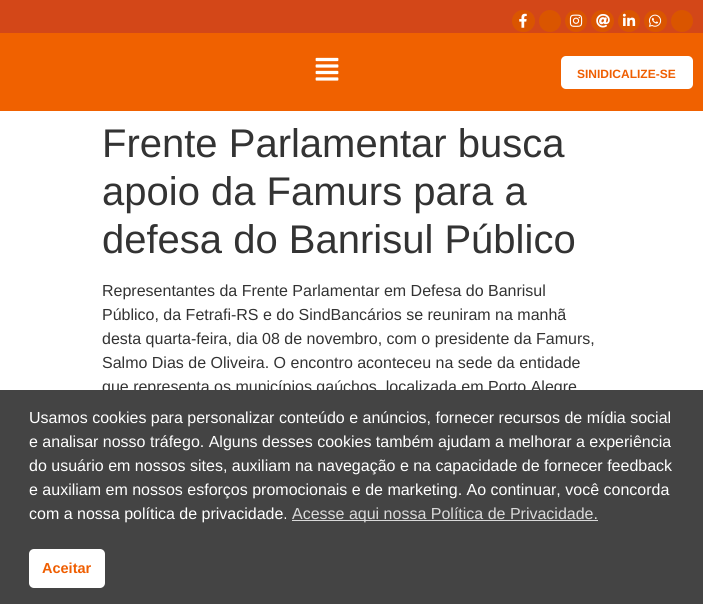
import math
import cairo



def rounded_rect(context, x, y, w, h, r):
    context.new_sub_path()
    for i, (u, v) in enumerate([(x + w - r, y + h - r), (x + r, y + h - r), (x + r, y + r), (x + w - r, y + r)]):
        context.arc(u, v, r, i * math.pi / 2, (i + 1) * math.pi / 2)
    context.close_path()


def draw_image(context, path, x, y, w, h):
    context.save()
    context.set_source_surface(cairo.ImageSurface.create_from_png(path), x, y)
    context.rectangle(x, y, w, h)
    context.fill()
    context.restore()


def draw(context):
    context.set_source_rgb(1, 1, 1)
    context.paint()
    context.set_source_rgb(211 / 255, 71 / 255, 24 / 255)
    context.rectangle(0, 0, 703, 33)
    context.fill()
    context.set_source_rgb(218 / 255, 85 / 255, 0)
    rounded_rect(context, 512, 10, 23, 22, 11)
    context.fill()
    draw_image(context, "images/1.png", 519, 13, 8, 15)
    context.arc(550, 21, 11, 0, 2 * math.pi)
    context.fill()
    context.arc(576, 21, 11, 0, 2 * math.pi)
    context.fill()
    draw_image(context, "images/2.png", 569, 14, 14, 13)
    rounded_rect(context, 591, 10, 23, 22, 11)
    context.fill()
    draw_image(context, "images/3.png", 596, 14, 14, 14)
    context.arc(629, 21, 11, 0, 2 * math.pi)
    context.fill()
    draw_image(context, "images/4.png", 622, 13, 14, 13)
    rounded_rect(context, 644, 10, 23, 22, 11)
    context.fill()
    draw_image(context, "images/5.png", 648, 14, 14, 13)
    context.arc(682, 21, 11, 0, 2 * math.pi)
    context.fill()
    context.set_source_rgb(240 / 255, 97 / 255, 0)
    context.rectangle(0, 33, 703, 78)
    context.fill()
    draw_image(context, "images/6.png", 315, 57, 24, 24)
    context.set_source_rgb(1, 1, 1)
    rounded_rect(context, 561, 56, 132, 33, 5)
    context.fill()
    context.select_font_face("Liberation Sans", cairo.FontSlant.NORMAL, cairo.FontWeight.BOLD)
    context.set_font_size(12)
    context.set_source_rgb(239 / 255, 94 / 255, 1 / 255)
    context.move_to(577, 78)
    context.show_text("SINIDICALIZE-SE")
    context.select_font_face("Liberation Sans")
    context.set_font_size(40)
    context.set_source_rgb(51 / 255, 51 / 255, 51 / 255)
    context.move_to(102, 157)
    context.show_text("Frente Parlamentar busca")
    context.move_to(102, 205)
    context.show_text("apoio da Famurs para a")
    context.move_to(102, 253)
    context.show_text("defesa do Banrisul Público")
    context.set_font_size(16)
    context.move_to(102, 296)
    context.show_text("Representantes da Frente Parlamentar em Defesa do Banrisul")
    context.move_to(102, 320)
    context.show_text("Público, da Fetrafi-RS e do SindBancários se reuniram na manhã")
    context.move_to(102, 344)
    context.show_text("desta quarta-feira, dia 08 de novembro, com o presidente da Famurs,")
    context.move_to(102, 368)
    context.show_text("Salmo Dias de Oliveira. O encontro aconteceu na sede da entidade")
    context.move_to(102, 392)
    context.show_text("que representa os municípios gaúchos, localizada em Porto Alegre")
    context.set_source_rgb(68 / 255, 68 / 255, 68 / 255)
    context.rectangle(0, 390, 703, 214)
    context.fill()
    context.set_source_rgb(1, 1, 1)
    context.move_to(29, 423)
    context.show_text("Usamos cookies para personalizar conteúdo e anúncios, fornecer recursos de mídia social")
    context.move_to(29, 447)
    context.show_text("e analisar nosso tráfego. Alguns desses cookies também ajudam a melhorar a experiência")
    context.move_to(29, 471)
    context.show_text("do usuário em nossos sites, auxiliam na navegação e na capacidade de fornecer feedback")
    context.move_to(29, 495)
    context.show_text("e auxiliam em nossos esforços promocionais e de marketing. Ao continuar, você concorda")
    context.move_to(29, 519)
    context.show_text("com a nossa política de privacidade.")
    context.set_source_rgb(218 / 255, 218 / 255, 218 / 255)
    context.rectangle(292, 520, 306, 1)
    context.fill()
    context.move_to(292, 519)
    context.show_text("Acesse aqui nossa Política de Privacidade.")
    context.set_source_rgb(1, 1, 1)
    rounded_rect(context, 29, 549, 76, 39, 5)
    context.fill()
    context.select_font_face("Liberation Sans", cairo.FontSlant.NORMAL, cairo.FontWeight.BOLD)
    context.set_font_size(14.5)
    context.set_source_rgb(239 / 255, 94 / 255, 1 / 255)
    context.move_to(42, 573)
    context.show_text("Aceitar")


surface = cairo.ImageSurface(cairo.Format.RGB24, 703, 604)
context = cairo.Context(surface)
options = cairo.FontOptions()
options.set_hint_metrics(cairo.HintMetrics.OFF)
options.set_hint_style(cairo.HintStyle.NONE)
context.set_font_options(options)
context.set_miter_limit(4)
draw(context)
surface.write_to_png("out.png")
